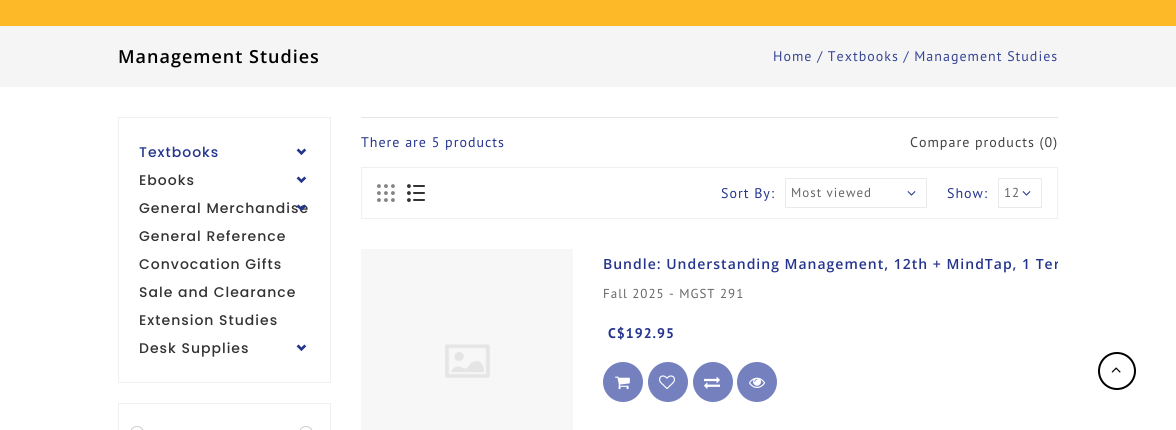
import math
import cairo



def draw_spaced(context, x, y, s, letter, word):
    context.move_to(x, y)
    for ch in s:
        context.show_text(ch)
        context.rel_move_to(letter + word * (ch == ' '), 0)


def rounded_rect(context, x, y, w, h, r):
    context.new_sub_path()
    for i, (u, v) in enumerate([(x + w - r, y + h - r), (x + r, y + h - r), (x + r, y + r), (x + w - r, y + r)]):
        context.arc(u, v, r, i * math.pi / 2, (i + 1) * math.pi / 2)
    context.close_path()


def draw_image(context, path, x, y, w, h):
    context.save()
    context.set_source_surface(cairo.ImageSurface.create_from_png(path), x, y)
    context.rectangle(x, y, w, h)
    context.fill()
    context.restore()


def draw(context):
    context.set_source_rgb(1, 1, 1)
    context.paint()
    context.set_source_rgb(253 / 255, 185 / 255, 39 / 255)
    context.rectangle(0, 0, 1176, 26)
    context.fill()
    context.set_source_rgb(245 / 255, 245 / 255, 245 / 255)
    context.rectangle(0, 26, 1176, 61)
    context.fill()
    context.rectangle(118.5, 117.5, 212, 265)
    context.set_source_rgb(240 / 255, 240 / 255, 240 / 255)
    context.set_line_width(1)
    context.stroke()
    draw_image(context, "images/1.png", 296, 148, 11, 8)
    draw_image(context, "images/1.png", 296, 176, 11, 8)
    draw_image(context, "images/1.png", 296, 344, 11, 8)
    context.rectangle(118.5, 403.5, 212, 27)
    context.stroke()
    rounded_rect(context, 130.5, 426.5, 13, 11, 6.5)
    context.set_source_rgb(204 / 255, 204 / 255, 204 / 255)
    context.stroke()
    rounded_rect(context, 299.5, 426.5, 13, 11, 6.5)
    context.stroke()
    context.set_source_rgb(229 / 255, 229 / 255, 229 / 255)
    context.rectangle(361, 117, 697, 1)
    context.fill()
    context.rectangle(361.5, 167.5, 696, 51)
    context.set_source_rgb(240 / 255, 240 / 255, 240 / 255)
    context.stroke()
    draw_image(context, "images/3.png", 377, 184, 18, 18)
    draw_image(context, "images/4.png", 407, 184, 18, 18)
    context.rectangle(785.5, 178.5, 141, 29)
    context.set_source_rgb(234 / 255, 234 / 255, 234 / 255)
    context.stroke()
    draw_image(context, "images/5.png", 907, 191, 9, 5)
    context.rectangle(998.5, 178.5, 43, 29)
    context.stroke()
    draw_image(context, "images/5.png", 1022, 191, 9, 5)
    context.set_source_rgb(247 / 255, 247 / 255, 247 / 255)
    context.rectangle(361, 249, 212, 181)
    context.fill()
    draw_image(context, "images/6.png", 445, 344, 45, 34)
    context.set_source_rgb(117 / 255, 129 / 255, 191 / 255)
    context.arc(623, 382, 20, 0, 2 * math.pi)
    context.fill()
    draw_image(context, "images/7.png", 615, 376, 15, 14)
    context.arc(668, 382, 20, 0, 2 * math.pi)
    context.fill()
    draw_image(context, "images/8.png", 659, 375, 16, 14)
    context.arc(713, 382, 20, 0, 2 * math.pi)
    context.fill()
    draw_image(context, "images/9.png", 704, 376, 16, 13)
    context.arc(757, 382, 20, 0, 2 * math.pi)
    context.fill()
    draw_image(context, "images/10.png", 749, 377, 16, 11)
    context.arc(1117, 371, 18, 0, 2 * math.pi)
    context.set_source_rgb(0, 0, 0)
    context.set_line_width(2)
    context.stroke()
    draw_image(context, "images/11.png", 1111, 367, 10, 6)
    context.select_font_face("Open Sans SemiBold")
    context.set_font_size(18)
    draw_spaced(context, 118, 63, "Management Studies", 1, 0)
    context.select_font_face("PT Sans")
    context.set_font_size(14)
    context.set_source_rgb(54 / 255, 69 / 255, 151 / 255)
    draw_spaced(context, 773, 61, "Home / Textbooks / Management Studies", 1, 0)
    context.select_font_face("Poppins Medium")
    context.set_source_rgb(37 / 255, 53 / 255, 142 / 255)
    draw_spaced(context, 139, 157, "Textbooks", 1, 0)
    context.set_source_rgb(51 / 255, 51 / 255, 51 / 255)
    draw_spaced(context, 139, 185, "Ebooks", 1, 0)
    draw_spaced(context, 139, 213, "General Merchandise", 1, 0)
    draw_image(context, "images/2.png", 296, 204, 10, 7)
    draw_spaced(context, 139, 241, "General Reference", 1, 0)
    draw_spaced(context, 139, 269, "Convocation Gifts", 1, 0)
    draw_spaced(context, 139, 297, "Sale and Clearance", 1, 0)
    draw_spaced(context, 139, 325, "Extension Studies", 1, 0)
    draw_spaced(context, 139, 353, "Desk Supplies", 1, 0)
    context.select_font_face("PT Sans")
    context.set_source_rgb(37 / 255, 53 / 255, 142 / 255)
    draw_spaced(context, 361, 147, "There are 5 products", 1, 0)
    context.set_source_rgb(65 / 255, 65 / 255, 65 / 255)
    draw_spaced(context, 910, 147, "Compare products (0)", 1, 0)
    context.set_source_rgb(37 / 255, 53 / 255, 142 / 255)
    draw_spaced(context, 721, 198, "Sort By:", 1, 0)
    context.set_font_size(13)
    context.set_source_rgb(102 / 255, 102 / 255, 102 / 255)
    draw_spaced(context, 791, 197, "Most viewed", 1, 0)
    context.set_font_size(14)
    context.set_source_rgb(37 / 255, 53 / 255, 142 / 255)
    draw_spaced(context, 947, 198, "Show:", 1, 0)
    context.set_font_size(13)
    context.set_source_rgb(102 / 255, 102 / 255, 102 / 255)
    draw_spaced(context, 1004, 197, "12", 1, 0)
    context.save()
    context.rectangle(603, 254, 455, 20)
    context.clip()
    context.select_font_face("Open Sans SemiBold")
    context.set_font_size(14)
    context.set_source_rgb(37 / 255, 53 / 255, 142 / 255)
    draw_spaced(context, 603, 269, "Bundle: Understanding Management, 12th + MindTap, 1 Ter", 1, 0)
    context.restore()
    draw_spaced(context, 603, 298, "Fall 2025 - MGST 291", 1, 0)
    context.select_font_face("PT Sans", cairo.FontSlant.NORMAL, cairo.FontWeight.BOLD)
    context.set_font_size(14)
    context.set_source_rgb(37 / 255, 53 / 255, 142 / 255)
    draw_spaced(context, 608, 338, "C$192.95", 1, 0)


surface = cairo.ImageSurface(cairo.Format.RGB24, 1176, 430)
context = cairo.Context(surface)
options = cairo.FontOptions()
options.set_hint_metrics(cairo.HintMetrics.OFF)
options.set_hint_style(cairo.HintStyle.NONE)
context.set_font_options(options)
context.set_miter_limit(4)
draw(context)
surface.write_to_png("out.png")
